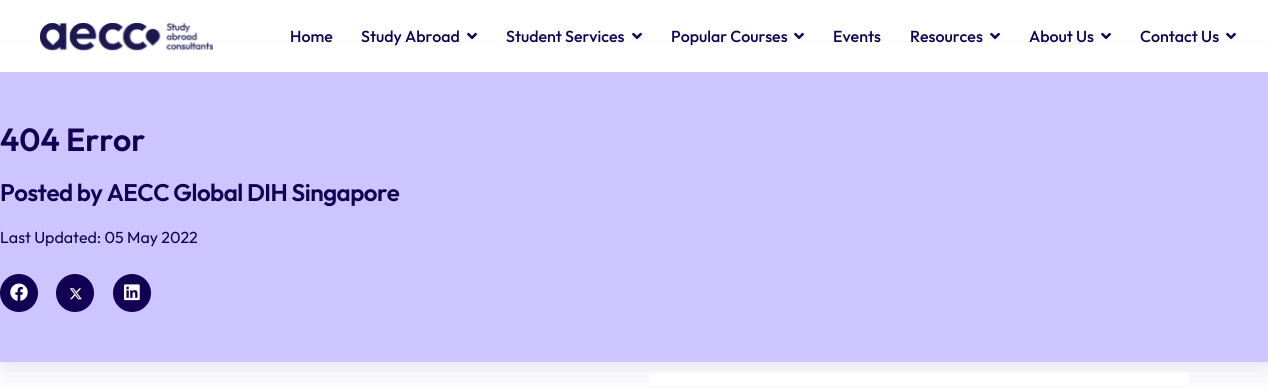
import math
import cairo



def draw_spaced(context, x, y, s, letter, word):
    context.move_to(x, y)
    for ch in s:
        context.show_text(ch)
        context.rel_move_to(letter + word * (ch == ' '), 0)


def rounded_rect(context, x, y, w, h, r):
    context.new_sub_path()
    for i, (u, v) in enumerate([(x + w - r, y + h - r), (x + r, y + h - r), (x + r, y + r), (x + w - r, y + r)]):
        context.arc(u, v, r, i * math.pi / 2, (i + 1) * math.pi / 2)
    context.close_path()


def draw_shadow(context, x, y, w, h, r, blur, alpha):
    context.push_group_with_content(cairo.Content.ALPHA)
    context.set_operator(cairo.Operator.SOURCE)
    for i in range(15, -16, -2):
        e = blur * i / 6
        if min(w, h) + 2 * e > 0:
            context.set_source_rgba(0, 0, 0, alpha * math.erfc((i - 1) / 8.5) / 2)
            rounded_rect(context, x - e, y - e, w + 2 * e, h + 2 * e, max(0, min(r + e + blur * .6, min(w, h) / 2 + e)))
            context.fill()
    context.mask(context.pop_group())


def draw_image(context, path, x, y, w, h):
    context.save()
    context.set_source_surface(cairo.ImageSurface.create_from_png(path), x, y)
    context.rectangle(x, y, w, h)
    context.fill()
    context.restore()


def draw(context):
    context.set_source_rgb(1, 1, 1)
    context.paint()
    context.set_source_rgb(17 / 255, 0, 83 / 255)
    draw_shadow(context, 1, 71, 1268, 292, 0, 17.5, 0.15)
    context.set_source_rgb(1, 1, 1)
    context.rectangle(0, 45, 1268, 27)
    context.fill()
    draw_image(context, "images/1.png", 40, 23, 173, 28)
    draw_image(context, "images/2.png", 467, 32, 10, 8)
    draw_image(context, "images/2.png", 632, 32, 10, 8)
    draw_image(context, "images/2.png", 794, 32, 10, 8)
    draw_image(context, "images/2.png", 990, 32, 10, 8)
    draw_image(context, "images/2.png", 1101, 32, 10, 8)
    draw_image(context, "images/2.png", 1226, 32, 10, 8)
    context.set_source_rgb(204 / 255, 197 / 255, 1)
    context.rectangle(0, 72, 1268, 290)
    context.fill()
    context.set_source_rgb(17 / 255, 0, 83 / 255)
    context.arc(19, 293, 19, 0, 2 * math.pi)
    context.fill()
    draw_image(context, "images/3.png", 10, 283, 18, 18)
    context.arc(75, 293, 19, 0, 2 * math.pi)
    context.fill()
    draw_image(context, "images/4.png", 69, 288, 13, 12)
    context.arc(132, 293, 19, 0, 2 * math.pi)
    context.fill()
    draw_image(context, "images/5.png", 124, 284, 16, 17)
    context.set_source_rgb(1, 1, 1)
    context.rectangle(649, 373, 540, 12)
    context.fill()
    context.select_font_face("Outfit Medium")
    context.set_font_size(16)
    context.set_source_rgb(17 / 255, 0, 83 / 255)
    context.move_to(290, 42)
    context.show_text("Home")
    context.move_to(361, 42)
    context.show_text("Study Abroad")
    context.move_to(506, 42)
    context.show_text("Student Services")
    context.move_to(671, 42)
    context.show_text("Popular Courses")
    context.move_to(833, 42)
    context.show_text("Events")
    context.move_to(910, 42)
    context.show_text("Resources")
    context.move_to(1029, 42)
    context.show_text("About Us")
    context.move_to(1140, 42)
    context.show_text("Contact Us")
    context.select_font_face("Outfit SemiBold")
    context.set_font_size(32)
    context.move_to(0, 151)
    context.show_text("404 Error")
    context.set_font_size(24)
    draw_spaced(context, 0, 201, "Posted by AECC Global DIH Singapore", -0.5, 0)
    context.select_font_face("Outfit")
    context.set_font_size(16)
    context.move_to(0, 243)
    context.show_text("Last Updated: 05 May 2022")


surface = cairo.ImageSurface(cairo.Format.RGB24, 1268, 388)
context = cairo.Context(surface)
options = cairo.FontOptions()
options.set_hint_metrics(cairo.HintMetrics.OFF)
options.set_hint_style(cairo.HintStyle.NONE)
context.set_font_options(options)
context.set_miter_limit(4)
draw(context)
surface.write_to_png("out.png")
